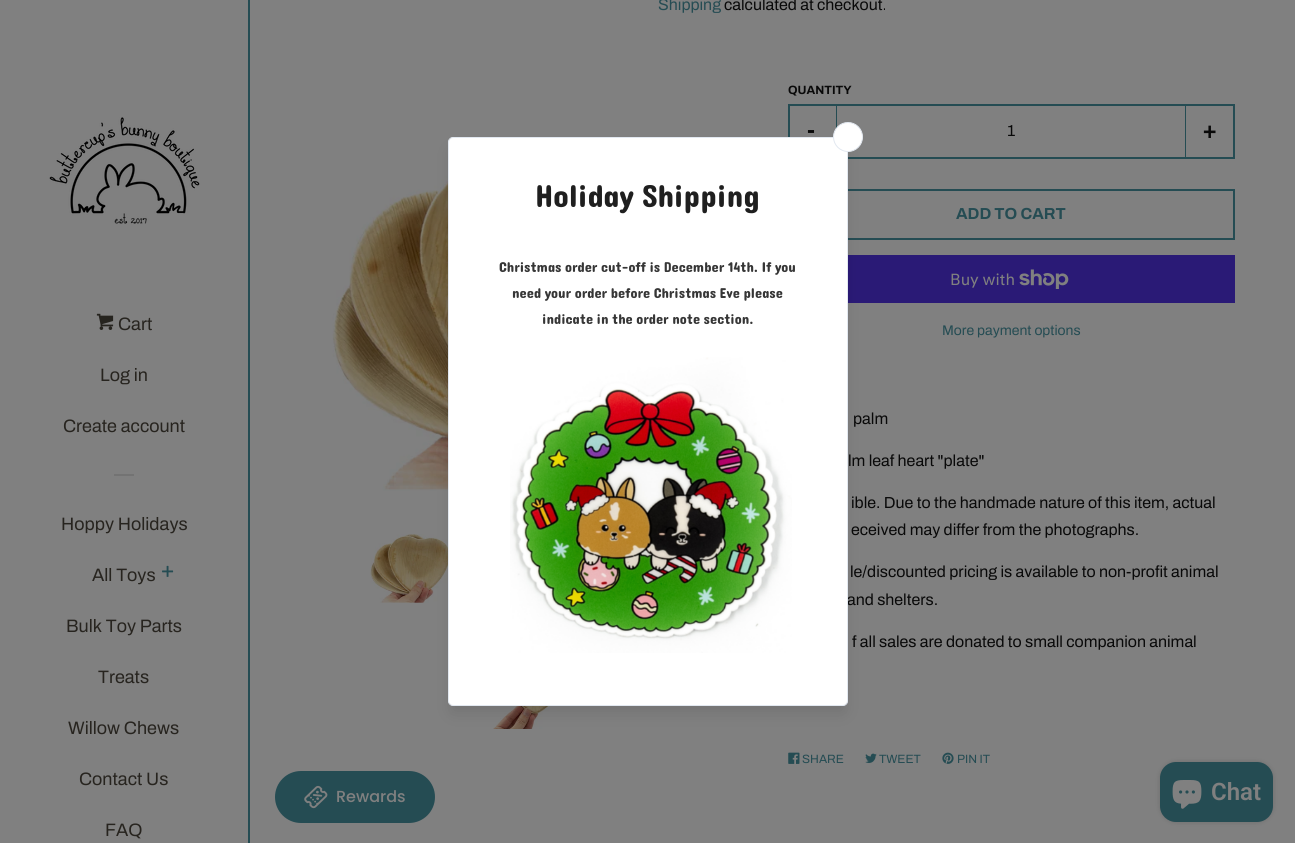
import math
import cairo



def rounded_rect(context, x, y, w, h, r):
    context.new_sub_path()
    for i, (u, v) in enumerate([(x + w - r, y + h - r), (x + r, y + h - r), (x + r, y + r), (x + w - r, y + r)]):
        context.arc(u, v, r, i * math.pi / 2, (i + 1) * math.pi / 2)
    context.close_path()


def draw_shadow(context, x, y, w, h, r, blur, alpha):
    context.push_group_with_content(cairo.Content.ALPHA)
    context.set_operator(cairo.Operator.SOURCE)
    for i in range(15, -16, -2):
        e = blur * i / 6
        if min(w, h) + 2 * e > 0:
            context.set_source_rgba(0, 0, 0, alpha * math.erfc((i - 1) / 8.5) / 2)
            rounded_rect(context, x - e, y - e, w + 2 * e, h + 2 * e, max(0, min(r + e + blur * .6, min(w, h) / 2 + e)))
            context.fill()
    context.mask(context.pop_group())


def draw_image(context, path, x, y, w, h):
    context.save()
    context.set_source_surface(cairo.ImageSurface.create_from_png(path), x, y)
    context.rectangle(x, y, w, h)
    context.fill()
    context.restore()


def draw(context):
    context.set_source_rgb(128 / 255, 128 / 255, 128 / 255)
    context.paint()
    draw_image(context, "images/2.png", 332, 143, 116, 348)
    draw_image(context, "images/3.png", 370, 534, 78, 69)
    draw_image(context, "images/4.png", 493, 706, 72, 23)
    context.rectangle(789, 105, 445, 53)
    context.set_source_rgb(37 / 255, 76 / 255, 83 / 255)
    context.stroke()
    context.rectangle(836, 104, 1, 24)
    context.fill()
    context.rectangle(789, 190, 445, 49)
    context.stroke()
    context.set_source_rgb(42 / 255, 26 / 255, 118 / 255)
    context.rectangle(848, 255, 387, 48)
    context.fill()
    context.set_source_rgb(0, 0, 0)
    draw_shadow(context, 451, 150, 394, 563, 2, 7.5, 0.1)
    context.set_source_rgb(37 / 255, 76 / 255, 83 / 255)
    context.rectangle(1185, 104, 1, 55)
    context.fill()
    draw_image(context, "images/5.png", 1019, 269, 50, 20)
    draw_image(context, "images/6.png", 788, 752, 12, 12)
    draw_image(context, "images/7.png", 865, 753, 12, 10)
    draw_image(context, "images/8.png", 942, 752, 12, 12)
    context.rectangle(248, 0, 2, 843)
    context.fill()
    draw_image(context, "images/9.png", 49, 117, 151, 107)
    draw_image(context, "images/10.png", 96, 313, 18, 17)
    context.set_source_rgb(115 / 255, 115 / 255, 115 / 255)
    context.rectangle(114, 474, 20, 2)
    context.fill()
    draw_image(context, "images/11.png", 162, 565, 12, 12)
    context.set_source_rgb(37 / 255, 76 / 255, 83 / 255)
    rounded_rect(context, 275, 771, 160, 52, 26)
    context.fill()
    draw_image(context, "images/12.png", 304, 785, 24, 24)
    context.set_source_rgb(0, 0, 0)
    draw_shadow(context, 1160, 762, 113, 60, 16, 2.5, 0.15)
    context.set_source_rgb(37 / 255, 76 / 255, 83 / 255)
    rounded_rect(context, 1160, 762, 113, 60, 16)
    context.fill()
    draw_image(context, "images/13.png", 1172, 780, 30, 29)
    context.select_font_face("Archivo")
    context.set_font_size(16)
    context.move_to(658, 10)
    context.show_text("Shipping")
    context.set_source_rgb(9 / 255, 9 / 255, 9 / 255)
    context.move_to(724, 10)
    context.show_text("calculated at checkout.")
    context.select_font_face("Archivo", cairo.FontSlant.NORMAL, cairo.FontWeight.BOLD)
    context.set_font_size(12)
    context.move_to(788, 94)
    context.show_text("QUANTITY")
    context.set_font_size(24)
    context.move_to(807, 138)
    context.show_text("-")
    context.select_font_face("Archivo")
    context.set_font_size(16)
    context.move_to(1007, 136)
    context.show_text("1")
    context.select_font_face("Archivo", cairo.FontSlant.NORMAL, cairo.FontWeight.BOLD)
    context.set_font_size(24)
    context.move_to(1202, 138)
    context.show_text("+")
    context.set_font_size(16)
    context.set_source_rgb(37 / 255, 76 / 255, 83 / 255)
    context.move_to(956, 219)
    context.show_text("ADD TO CART")
    context.select_font_face("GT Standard")
    context.set_source_rgb(128 / 255, 128 / 255, 128 / 255)
    context.move_to(950, 285)
    context.show_text("Buy with")
    context.select_font_face("Archivo")
    context.set_font_size(14)
    context.set_source_rgb(37 / 255, 76 / 255, 83 / 255)
    context.move_to(942, 335)
    context.show_text("More payment options")
    context.set_font_size(16)
    context.set_source_rgb(9 / 255, 9 / 255, 9 / 255)
    context.move_to(853, 424)
    context.show_text("palm")
    context.move_to(848, 466)
    context.show_text("lm leaf heart \"plate\"")
    context.move_to(851, 508)
    context.show_text("ible. Due to the handmade nature of this item, actual")
    context.move_to(851, 535)
    context.show_text("eceived may differ from the photographs.")
    context.move_to(850, 577)
    context.show_text("le/discounted pricing is available to non-profit animal")
    context.move_to(847, 605)
    context.show_text("and shelters.")
    context.set_source_rgb(1, 1, 1)
    rounded_rect(context, 448.5, 137.5, 399, 568, 4.5)
    context.fill_preserve()
    context.set_source_rgb(226 / 255, 232 / 255, 240 / 255)
    context.set_line_width(1)
    context.stroke()
    context.save()
    context.rectangle(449, 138, 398, 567)
    context.clip()
    context.set_source_rgb(0, 0, 0)
    draw_shadow(context, 452, 141, 392, 561, 2, 10, 0.12)
    context.restore()
    context.set_source_rgb(1, 1, 1)
    rounded_rect(context, 449, 138, 398, 567, 5)
    context.fill()
    context.arc(848, 137, 14.5, 0, 2 * math.pi)
    context.fill_preserve()
    context.set_source_rgb(226 / 255, 232 / 255, 240 / 255)
    context.stroke()
    draw_image(context, "images/1.png", 510, 357, 282, 296)
    context.select_font_face("Dangrek")
    context.set_font_size(14.4)
    context.set_source_rgb(54 / 255, 54 / 255, 54 / 255)
    context.move_to(542, 324)
    context.show_text("indicate in the order note section.")
    context.move_to(512, 298)
    context.show_text("need your order before Christmas Eve please")
    context.move_to(499, 272)
    context.show_text("Christmas order cut-off is December 14th. If you")
    context.set_font_size(32)
    context.set_source_rgb(31 / 255, 31 / 255, 31 / 255)
    context.move_to(535, 207)
    context.show_text("Holiday Shipping")
    context.select_font_face("Archivo")
    context.set_font_size(16)
    context.set_source_rgb(9 / 255, 9 / 255, 9 / 255)
    context.move_to(852, 647)
    context.show_text("f all sales are donated to small companion animal")
    context.set_font_size(12)
    context.set_source_rgb(37 / 255, 76 / 255, 83 / 255)
    context.move_to(802, 763)
    context.show_text("SHARE")
    context.move_to(879, 763)
    context.show_text("TWEET")
    context.move_to(957, 763)
    context.show_text("PIN IT")
    context.set_font_size(18)
    context.set_source_rgb(39 / 255, 36 / 255, 31 / 255)
    context.move_to(118, 330)
    context.show_text("Cart")
    context.move_to(100, 381)
    context.show_text("Log in")
    context.move_to(63, 432)
    context.show_text("Create account")
    context.move_to(61, 530)
    context.show_text("Hoppy Holidays")
    context.move_to(92, 581)
    context.show_text("All Toys")
    context.move_to(66, 632)
    context.show_text("Bulk Toy Parts")
    context.move_to(98, 683)
    context.show_text("Treats")
    context.move_to(68, 734)
    context.show_text("Willow Chews")
    context.move_to(79, 785)
    context.show_text("Contact Us")
    context.move_to(105, 836)
    context.show_text("FAQ")
    context.select_font_face("Poppins Medium")
    context.set_font_size(16)
    context.set_source_rgb(128 / 255, 128 / 255, 128 / 255)
    context.move_to(336, 802)
    context.show_text("Rewards")
    context.select_font_face("Roboto SemiBold")
    context.set_font_size(24)
    context.move_to(1211, 800)
    context.show_text("Chat")


surface = cairo.ImageSurface(cairo.Format.RGB24, 1295, 843)
context = cairo.Context(surface)
options = cairo.FontOptions()
options.set_hint_metrics(cairo.HintMetrics.OFF)
options.set_hint_style(cairo.HintStyle.NONE)
context.set_font_options(options)
context.set_miter_limit(4)
draw(context)
surface.write_to_png("out.png")
